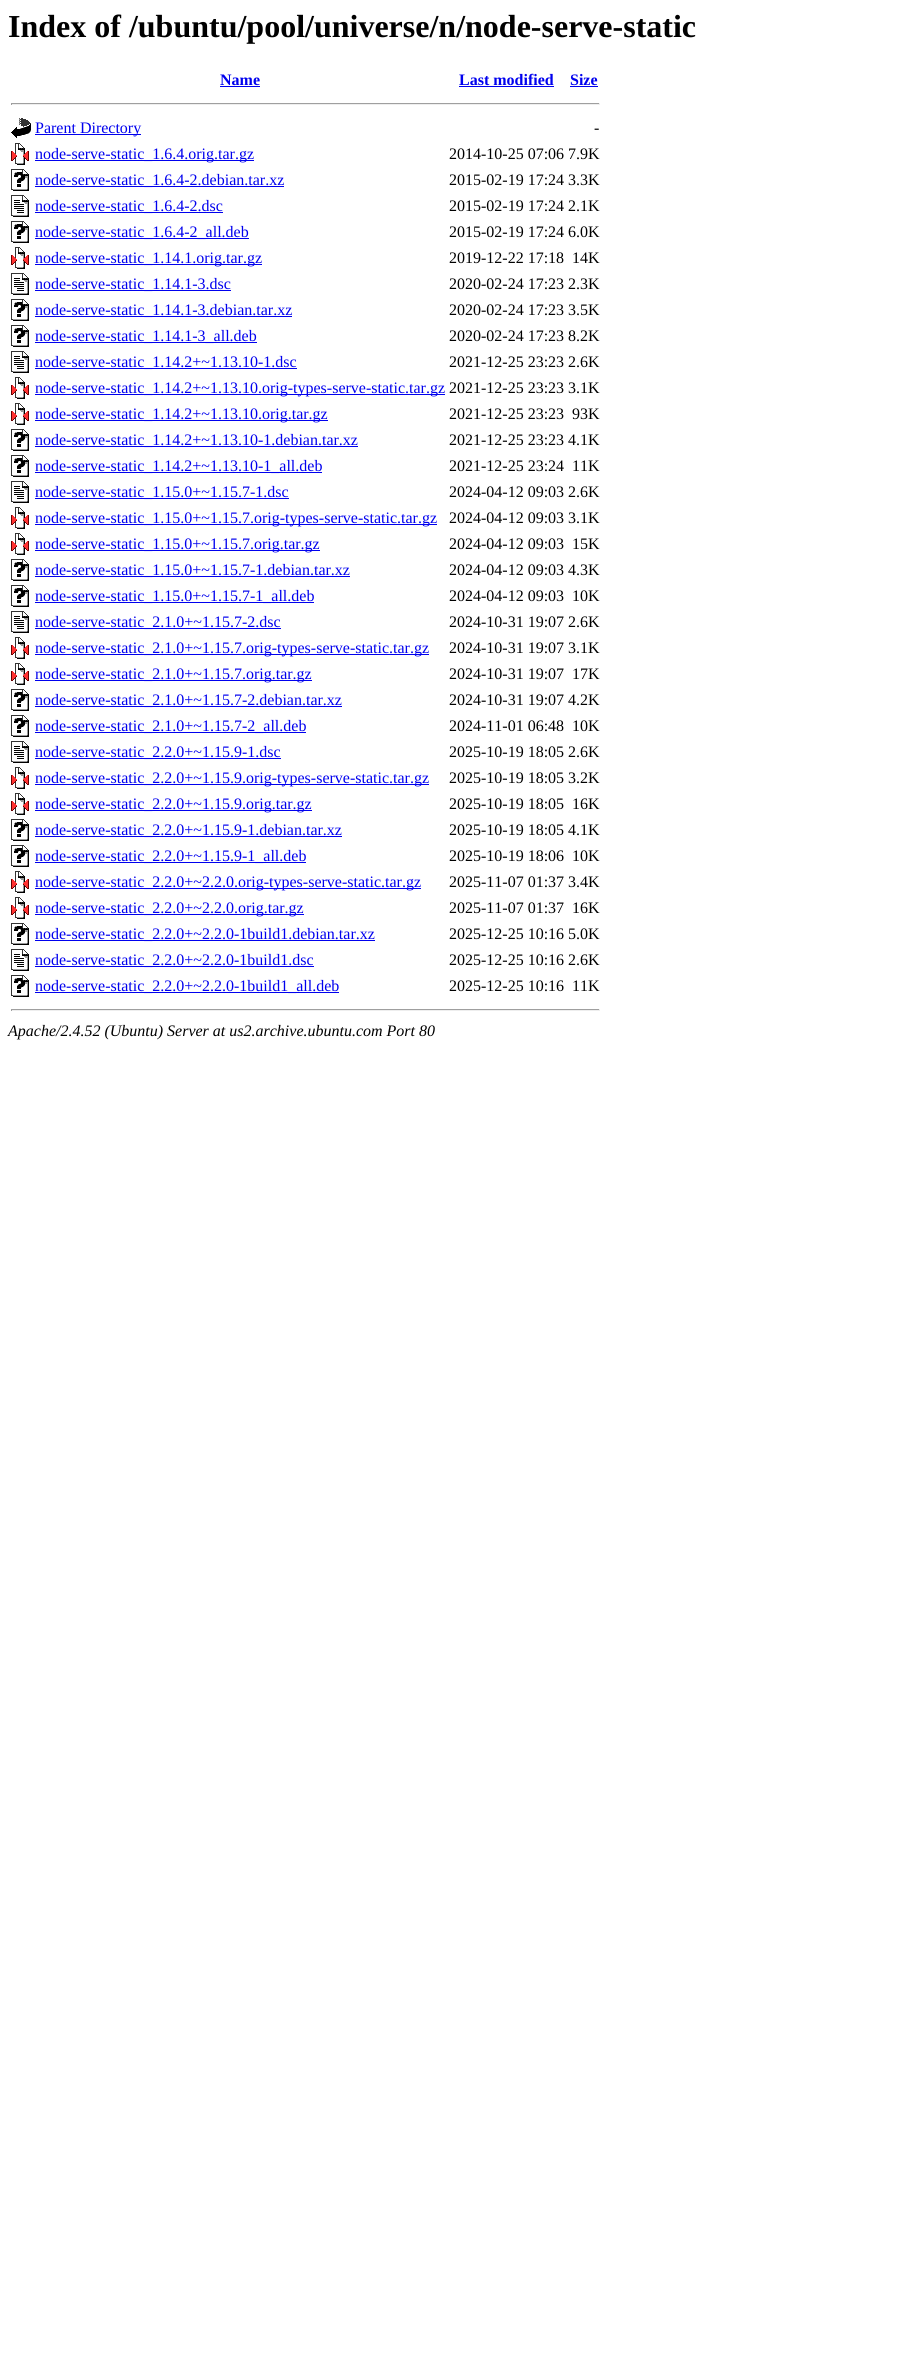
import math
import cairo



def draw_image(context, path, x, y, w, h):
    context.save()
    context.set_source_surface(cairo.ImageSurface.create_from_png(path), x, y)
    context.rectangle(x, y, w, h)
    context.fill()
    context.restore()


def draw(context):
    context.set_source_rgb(1, 1, 1)
    context.paint()
    context.set_source_rgb(0, 0, 238 / 255)
    context.rectangle(220, 86, 40, 1)
    context.fill()
    context.rectangle(459, 86, 95, 1)
    context.fill()
    context.rectangle(570, 86, 28, 1)
    context.fill()
    context.set_source_rgb(159 / 255, 159 / 255, 159 / 255)
    context.rectangle(11, 103, 589, 1)
    context.fill()
    context.set_source_rgb(238 / 255, 238 / 255, 238 / 255)
    context.rectangle(599, 103, 1, 2)
    context.fill()
    context.rectangle(11, 104, 589, 1)
    context.fill()
    context.set_source_rgb(159 / 255, 159 / 255, 159 / 255)
    context.rectangle(11, 103, 1, 2)
    context.fill()
    draw_image(context, "images/1.png", 11, 118, 20, 20)
    context.set_source_rgb(0, 0, 238 / 255)
    context.rectangle(35, 134, 106, 1)
    context.fill()
    draw_image(context, "images/2.png", 11, 143, 18, 22)
    context.rectangle(35, 160, 219, 1)
    context.fill()
    draw_image(context, "images/3.png", 11, 169, 18, 22)
    context.rectangle(35, 186, 249, 1)
    context.fill()
    draw_image(context, "images/4.png", 11, 195, 18, 22)
    context.rectangle(35, 212, 188, 1)
    context.fill()
    draw_image(context, "images/3.png", 11, 221, 18, 22)
    context.rectangle(35, 238, 214, 1)
    context.fill()
    draw_image(context, "images/2.png", 11, 247, 18, 22)
    context.rectangle(35, 264, 227, 1)
    context.fill()
    draw_image(context, "images/4.png", 11, 273, 18, 22)
    context.rectangle(35, 290, 196, 1)
    context.fill()
    draw_image(context, "images/3.png", 11, 299, 18, 22)
    context.rectangle(35, 316, 257, 1)
    context.fill()
    draw_image(context, "images/3.png", 11, 325, 18, 22)
    context.rectangle(35, 342, 222, 1)
    context.fill()
    draw_image(context, "images/4.png", 11, 351, 18, 22)
    context.rectangle(35, 368, 262, 1)
    context.fill()
    draw_image(context, "images/2.png", 11, 377, 18, 22)
    context.rectangle(35, 394, 410, 1)
    context.fill()
    draw_image(context, "images/2.png", 11, 403, 18, 22)
    context.rectangle(35, 420, 293, 1)
    context.fill()
    draw_image(context, "images/3.png", 11, 429, 18, 22)
    context.rectangle(35, 446, 323, 1)
    context.fill()
    draw_image(context, "images/3.png", 11, 455, 18, 22)
    context.rectangle(35, 472, 287, 1)
    context.fill()
    draw_image(context, "images/4.png", 11, 481, 18, 22)
    context.rectangle(35, 498, 254, 1)
    context.fill()
    draw_image(context, "images/2.png", 11, 507, 18, 22)
    context.rectangle(35, 524, 402, 1)
    context.fill()
    draw_image(context, "images/2.png", 11, 533, 18, 22)
    context.rectangle(35, 550, 285, 1)
    context.fill()
    draw_image(context, "images/3.png", 11, 559, 18, 22)
    context.rectangle(35, 576, 315, 1)
    context.fill()
    draw_image(context, "images/3.png", 11, 585, 18, 22)
    context.rectangle(35, 602, 279, 1)
    context.fill()
    draw_image(context, "images/4.png", 11, 611, 18, 22)
    context.rectangle(35, 628, 246, 1)
    context.fill()
    draw_image(context, "images/2.png", 11, 637, 18, 22)
    context.rectangle(35, 654, 394, 1)
    context.fill()
    draw_image(context, "images/2.png", 11, 663, 18, 22)
    context.rectangle(35, 680, 277, 1)
    context.fill()
    draw_image(context, "images/3.png", 11, 689, 18, 22)
    context.rectangle(35, 706, 307, 1)
    context.fill()
    draw_image(context, "images/3.png", 11, 715, 18, 22)
    context.rectangle(35, 732, 271, 1)
    context.fill()
    draw_image(context, "images/4.png", 11, 741, 18, 22)
    context.rectangle(35, 758, 246, 1)
    context.fill()
    draw_image(context, "images/2.png", 11, 767, 18, 22)
    context.rectangle(35, 784, 394, 1)
    context.fill()
    draw_image(context, "images/2.png", 11, 793, 18, 22)
    context.rectangle(35, 810, 277, 1)
    context.fill()
    draw_image(context, "images/3.png", 11, 819, 18, 22)
    context.rectangle(35, 836, 307, 1)
    context.fill()
    draw_image(context, "images/3.png", 11, 845, 18, 22)
    context.rectangle(35, 862, 271, 1)
    context.fill()
    draw_image(context, "images/2.png", 11, 871, 18, 22)
    context.rectangle(35, 888, 386, 1)
    context.fill()
    draw_image(context, "images/2.png", 11, 897, 18, 22)
    context.rectangle(35, 914, 269, 1)
    context.fill()
    draw_image(context, "images/3.png", 11, 923, 18, 22)
    context.rectangle(35, 940, 340, 1)
    context.fill()
    draw_image(context, "images/4.png", 11, 949, 18, 22)
    context.rectangle(35, 966, 279, 1)
    context.fill()
    draw_image(context, "images/3.png", 11, 975, 18, 22)
    context.rectangle(35, 992, 304, 1)
    context.fill()
    context.set_source_rgb(159 / 255, 159 / 255, 159 / 255)
    context.rectangle(11, 1009, 589, 1)
    context.fill()
    context.set_source_rgb(238 / 255, 238 / 255, 238 / 255)
    context.rectangle(599, 1009, 1, 2)
    context.fill()
    context.rectangle(11, 1010, 589, 1)
    context.fill()
    context.set_source_rgb(159 / 255, 159 / 255, 159 / 255)
    context.rectangle(11, 1009, 1, 2)
    context.fill()
    context.select_font_face("Liberation Serif", cairo.FontSlant.NORMAL, cairo.FontWeight.BOLD)
    context.set_font_size(32)
    context.set_source_rgb(0, 0, 0)
    context.move_to(8, 37)
    context.show_text("Index of /ubuntu/pool/universe/n/node-serve-static")
    context.set_font_size(16)
    context.set_source_rgb(0, 0, 238 / 255)
    context.move_to(220, 85)
    context.show_text("Name")
    context.move_to(459, 85)
    context.show_text("Last modified")
    context.move_to(570, 85)
    context.show_text("Size")
    context.select_font_face("Liberation Serif")
    context.move_to(35, 133)
    context.show_text("Parent Directory")
    context.set_source_rgb(0, 0, 0)
    context.move_to(594, 133)
    context.show_text("-")
    context.set_source_rgb(0, 0, 238 / 255)
    context.move_to(35, 159)
    context.show_text("node-serve-static_1.6.4.orig.tar.gz")
    context.set_source_rgb(0, 0, 0)
    context.move_to(449, 159)
    context.show_text("2014-10-25 07:06 7.9K")
    context.set_source_rgb(0, 0, 238 / 255)
    context.move_to(35, 185)
    context.show_text("node-serve-static_1.6.4-2.debian.tar.xz")
    context.set_source_rgb(0, 0, 0)
    context.move_to(449, 185)
    context.show_text("2015-02-19 17:24 3.3K")
    context.set_source_rgb(0, 0, 238 / 255)
    context.move_to(35, 211)
    context.show_text("node-serve-static_1.6.4-2.dsc")
    context.set_source_rgb(0, 0, 0)
    context.move_to(449, 211)
    context.show_text("2015-02-19 17:24 2.1K")
    context.set_source_rgb(0, 0, 238 / 255)
    context.move_to(35, 237)
    context.show_text("node-serve-static_1.6.4-2_all.deb")
    context.set_source_rgb(0, 0, 0)
    context.move_to(449, 237)
    context.show_text("2015-02-19 17:24 6.0K")
    context.set_source_rgb(0, 0, 238 / 255)
    context.move_to(35, 263)
    context.show_text("node-serve-static_1.14.1.orig.tar.gz")
    context.set_source_rgb(0, 0, 0)
    context.move_to(449, 263)
    context.show_text("2019-12-22 17:18")
    context.move_to(572, 263)
    context.show_text("14K")
    context.set_source_rgb(0, 0, 238 / 255)
    context.move_to(35, 289)
    context.show_text("node-serve-static_1.14.1-3.dsc")
    context.set_source_rgb(0, 0, 0)
    context.move_to(449, 289)
    context.show_text("2020-02-24 17:23 2.3K")
    context.set_source_rgb(0, 0, 238 / 255)
    context.move_to(35, 315)
    context.show_text("node-serve-static_1.14.1-3.debian.tar.xz")
    context.set_source_rgb(0, 0, 0)
    context.move_to(449, 315)
    context.show_text("2020-02-24 17:23 3.5K")
    context.set_source_rgb(0, 0, 238 / 255)
    context.move_to(35, 341)
    context.show_text("node-serve-static_1.14.1-3_all.deb")
    context.set_source_rgb(0, 0, 0)
    context.move_to(449, 341)
    context.show_text("2020-02-24 17:23 8.2K")
    context.set_source_rgb(0, 0, 238 / 255)
    context.move_to(35, 367)
    context.show_text("node-serve-static_1.14.2+~1.13.10-1.dsc")
    context.set_source_rgb(0, 0, 0)
    context.move_to(449, 367)
    context.show_text("2021-12-25 23:23 2.6K")
    context.set_source_rgb(0, 0, 238 / 255)
    context.move_to(35, 393)
    context.show_text("node-serve-static_1.14.2+~1.13.10.orig-types-serve-static.tar.gz")
    context.set_source_rgb(0, 0, 0)
    context.move_to(449, 393)
    context.show_text("2021-12-25 23:23 3.1K")
    context.set_source_rgb(0, 0, 238 / 255)
    context.move_to(35, 419)
    context.show_text("node-serve-static_1.14.2+~1.13.10.orig.tar.gz")
    context.set_source_rgb(0, 0, 0)
    context.move_to(449, 419)
    context.show_text("2021-12-25 23:23")
    context.move_to(572, 419)
    context.show_text("93K")
    context.set_source_rgb(0, 0, 238 / 255)
    context.move_to(35, 445)
    context.show_text("node-serve-static_1.14.2+~1.13.10-1.debian.tar.xz")
    context.set_source_rgb(0, 0, 0)
    context.move_to(449, 445)
    context.show_text("2021-12-25 23:23 4.1K")
    context.set_source_rgb(0, 0, 238 / 255)
    context.move_to(35, 471)
    context.show_text("node-serve-static_1.14.2+~1.13.10-1_all.deb")
    context.set_source_rgb(0, 0, 0)
    context.move_to(449, 471)
    context.show_text("2021-12-25 23:24")
    context.move_to(572, 471)
    context.show_text("11K")
    context.set_source_rgb(0, 0, 238 / 255)
    context.move_to(35, 497)
    context.show_text("node-serve-static_1.15.0+~1.15.7-1.dsc")
    context.set_source_rgb(0, 0, 0)
    context.move_to(449, 497)
    context.show_text("2024-04-12 09:03 2.6K")
    context.set_source_rgb(0, 0, 238 / 255)
    context.move_to(35, 523)
    context.show_text("node-serve-static_1.15.0+~1.15.7.orig-types-serve-static.tar.gz")
    context.set_source_rgb(0, 0, 0)
    context.move_to(449, 523)
    context.show_text("2024-04-12 09:03 3.1K")
    context.set_source_rgb(0, 0, 238 / 255)
    context.move_to(35, 549)
    context.show_text("node-serve-static_1.15.0+~1.15.7.orig.tar.gz")
    context.set_source_rgb(0, 0, 0)
    context.move_to(449, 549)
    context.show_text("2024-04-12 09:03")
    context.move_to(572, 549)
    context.show_text("15K")
    context.set_source_rgb(0, 0, 238 / 255)
    context.move_to(35, 575)
    context.show_text("node-serve-static_1.15.0+~1.15.7-1.debian.tar.xz")
    context.set_source_rgb(0, 0, 0)
    context.move_to(449, 575)
    context.show_text("2024-04-12 09:03 4.3K")
    context.set_source_rgb(0, 0, 238 / 255)
    context.move_to(35, 601)
    context.show_text("node-serve-static_1.15.0+~1.15.7-1_all.deb")
    context.set_source_rgb(0, 0, 0)
    context.move_to(449, 601)
    context.show_text("2024-04-12 09:03")
    context.move_to(572, 601)
    context.show_text("10K")
    context.set_source_rgb(0, 0, 238 / 255)
    context.move_to(35, 627)
    context.show_text("node-serve-static_2.1.0+~1.15.7-2.dsc")
    context.set_source_rgb(0, 0, 0)
    context.move_to(449, 627)
    context.show_text("2024-10-31 19:07 2.6K")
    context.set_source_rgb(0, 0, 238 / 255)
    context.move_to(35, 653)
    context.show_text("node-serve-static_2.1.0+~1.15.7.orig-types-serve-static.tar.gz")
    context.set_source_rgb(0, 0, 0)
    context.move_to(449, 653)
    context.show_text("2024-10-31 19:07 3.1K")
    context.set_source_rgb(0, 0, 238 / 255)
    context.move_to(35, 679)
    context.show_text("node-serve-static_2.1.0+~1.15.7.orig.tar.gz")
    context.set_source_rgb(0, 0, 0)
    context.move_to(449, 679)
    context.show_text("2024-10-31 19:07")
    context.move_to(572, 679)
    context.show_text("17K")
    context.set_source_rgb(0, 0, 238 / 255)
    context.move_to(35, 705)
    context.show_text("node-serve-static_2.1.0+~1.15.7-2.debian.tar.xz")
    context.set_source_rgb(0, 0, 0)
    context.move_to(449, 705)
    context.show_text("2024-10-31 19:07 4.2K")
    context.set_source_rgb(0, 0, 238 / 255)
    context.move_to(35, 731)
    context.show_text("node-serve-static_2.1.0+~1.15.7-2_all.deb")
    context.set_source_rgb(0, 0, 0)
    context.move_to(449, 731)
    context.show_text("2024-11-01 06:48")
    context.move_to(572, 731)
    context.show_text("10K")
    context.set_source_rgb(0, 0, 238 / 255)
    context.move_to(35, 757)
    context.show_text("node-serve-static_2.2.0+~1.15.9-1.dsc")
    context.set_source_rgb(0, 0, 0)
    context.move_to(449, 757)
    context.show_text("2025-10-19 18:05 2.6K")
    context.set_source_rgb(0, 0, 238 / 255)
    context.move_to(35, 783)
    context.show_text("node-serve-static_2.2.0+~1.15.9.orig-types-serve-static.tar.gz")
    context.set_source_rgb(0, 0, 0)
    context.move_to(449, 783)
    context.show_text("2025-10-19 18:05 3.2K")
    context.set_source_rgb(0, 0, 238 / 255)
    context.move_to(35, 809)
    context.show_text("node-serve-static_2.2.0+~1.15.9.orig.tar.gz")
    context.set_source_rgb(0, 0, 0)
    context.move_to(449, 809)
    context.show_text("2025-10-19 18:05")
    context.move_to(572, 809)
    context.show_text("16K")
    context.set_source_rgb(0, 0, 238 / 255)
    context.move_to(35, 835)
    context.show_text("node-serve-static_2.2.0+~1.15.9-1.debian.tar.xz")
    context.set_source_rgb(0, 0, 0)
    context.move_to(449, 835)
    context.show_text("2025-10-19 18:05 4.1K")
    context.set_source_rgb(0, 0, 238 / 255)
    context.move_to(35, 861)
    context.show_text("node-serve-static_2.2.0+~1.15.9-1_all.deb")
    context.set_source_rgb(0, 0, 0)
    context.move_to(449, 861)
    context.show_text("2025-10-19 18:06")
    context.move_to(572, 861)
    context.show_text("10K")
    context.set_source_rgb(0, 0, 238 / 255)
    context.move_to(35, 887)
    context.show_text("node-serve-static_2.2.0+~2.2.0.orig-types-serve-static.tar.gz")
    context.set_source_rgb(0, 0, 0)
    context.move_to(449, 887)
    context.show_text("2025-11-07 01:37 3.4K")
    context.set_source_rgb(0, 0, 238 / 255)
    context.move_to(35, 913)
    context.show_text("node-serve-static_2.2.0+~2.2.0.orig.tar.gz")
    context.set_source_rgb(0, 0, 0)
    context.move_to(449, 913)
    context.show_text("2025-11-07 01:37")
    context.move_to(572, 913)
    context.show_text("16K")
    context.set_source_rgb(0, 0, 238 / 255)
    context.move_to(35, 939)
    context.show_text("node-serve-static_2.2.0+~2.2.0-1build1.debian.tar.xz")
    context.set_source_rgb(0, 0, 0)
    context.move_to(449, 939)
    context.show_text("2025-12-25 10:16 5.0K")
    context.set_source_rgb(0, 0, 238 / 255)
    context.move_to(35, 965)
    context.show_text("node-serve-static_2.2.0+~2.2.0-1build1.dsc")
    context.set_source_rgb(0, 0, 0)
    context.move_to(449, 965)
    context.show_text("2025-12-25 10:16 2.6K")
    context.set_source_rgb(0, 0, 238 / 255)
    context.move_to(35, 991)
    context.show_text("node-serve-static_2.2.0+~2.2.0-1build1_all.deb")
    context.set_source_rgb(0, 0, 0)
    context.move_to(449, 991)
    context.show_text("2025-12-25 10:16")
    context.move_to(572, 991)
    context.show_text("11K")
    context.select_font_face("Liberation Serif", cairo.FontSlant.ITALIC)
    context.move_to(8, 1036)
    context.show_text("Apache/2.4.52 (Ubuntu) Server at us2.archive.ubuntu.com Port 80")


surface = cairo.ImageSurface(cairo.Format.RGB24, 910, 2377)
context = cairo.Context(surface)
options = cairo.FontOptions()
options.set_hint_metrics(cairo.HintMetrics.OFF)
options.set_hint_style(cairo.HintStyle.NONE)
context.set_font_options(options)
context.set_miter_limit(4)
draw(context)
surface.write_to_png("out.png")
